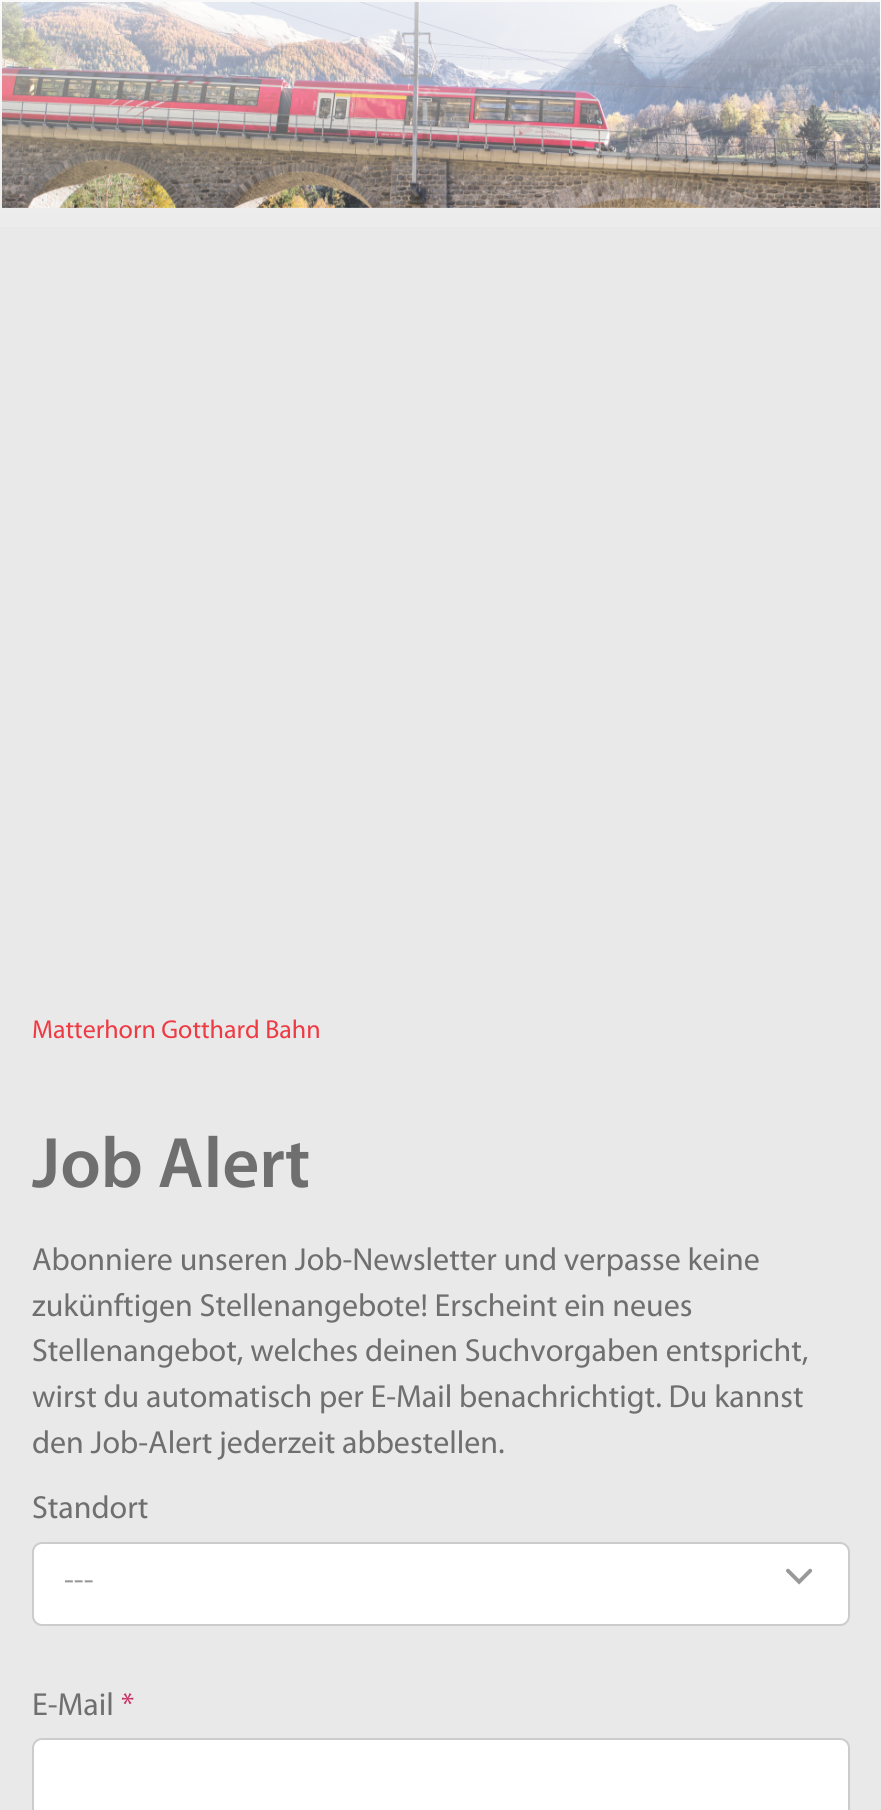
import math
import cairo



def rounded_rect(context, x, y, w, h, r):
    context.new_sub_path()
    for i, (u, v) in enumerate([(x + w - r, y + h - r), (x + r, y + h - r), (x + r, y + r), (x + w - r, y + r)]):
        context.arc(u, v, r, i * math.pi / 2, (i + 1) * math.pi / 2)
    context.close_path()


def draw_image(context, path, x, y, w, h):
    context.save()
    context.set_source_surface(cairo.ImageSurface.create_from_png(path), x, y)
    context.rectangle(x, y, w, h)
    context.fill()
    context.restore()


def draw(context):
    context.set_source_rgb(233 / 255, 233 / 255, 233 / 255)
    context.paint()
    draw_image(context, "images/1.png", 2, 2, 878, 206)
    gradient = cairo.LinearGradient(441, 0, 441, 270)
    gradient.add_color_stop_rgba(0, 1, 1, 1, 0.75)
    gradient.add_color_stop_rgba(1, 1, 1, 1, 0)
    context.set_source(gradient)
    context.rectangle(0, 0, 881, 227)
    context.fill()
    context.set_source_rgb(1, 1, 1)
    rounded_rect(context, 33, 1543, 816, 82, 9)
    context.fill_preserve()
    context.set_source_rgb(204 / 255, 204 / 255, 204 / 255)
    context.stroke()
    draw_image(context, "images/2.png", 786, 1568, 27, 17)
    context.set_source_rgb(1, 1, 1)
    rounded_rect(context, 33, 1739, 816, 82, 9)
    context.fill_preserve()
    context.set_source_rgb(204 / 255, 204 / 255, 204 / 255)
    context.stroke()
    context.select_font_face("Myriad")
    context.set_font_size(26)
    context.set_source_rgb(238 / 255, 58 / 255, 67 / 255)
    context.move_to(32, 1038)
    context.show_text("Matterhorn Gotthard Bahn")
    context.select_font_face("Myriad SemiBold")
    context.set_font_size(72)
    context.set_source_rgb(111 / 255, 111 / 255, 111 / 255)
    context.move_to(32, 1187)
    context.show_text("Job Alert")
    context.select_font_face("Myriad")
    context.set_font_size(32)
    context.move_to(32, 1270)
    context.show_text("Abonniere unseren Job-Newsletter und verpasse keine")
    context.move_to(32, 1316)
    context.show_text("zukünftigen Stellenangebote! Erscheint ein neues")
    context.move_to(32, 1361)
    context.show_text("Stellenangebot, welches deinen Suchvorgaben entspricht,")
    context.move_to(32, 1407)
    context.show_text("wirst du automatisch per E-Mail benachrichtigt. Du kannst")
    context.move_to(32, 1453)
    context.show_text("den Job-Alert jederzeit abbestellen.")
    context.move_to(32, 1518)
    context.show_text("Standort")
    context.set_source_rgb(153 / 255, 153 / 255, 153 / 255)
    context.move_to(64, 1590)
    context.show_text("---")
    context.set_source_rgb(111 / 255, 111 / 255, 111 / 255)
    context.move_to(32, 1715)
    context.show_text("E-Mail")
    context.set_source_rgb(204 / 255, 51 / 255, 102 / 255)
    context.move_to(121, 1715)
    context.show_text("*")


surface = cairo.ImageSurface(cairo.Format.RGB24, 881, 1810)
context = cairo.Context(surface)
options = cairo.FontOptions()
options.set_hint_metrics(cairo.HintMetrics.OFF)
options.set_hint_style(cairo.HintStyle.NONE)
context.set_font_options(options)
context.set_miter_limit(4)
draw(context)
surface.write_to_png("out.png")
